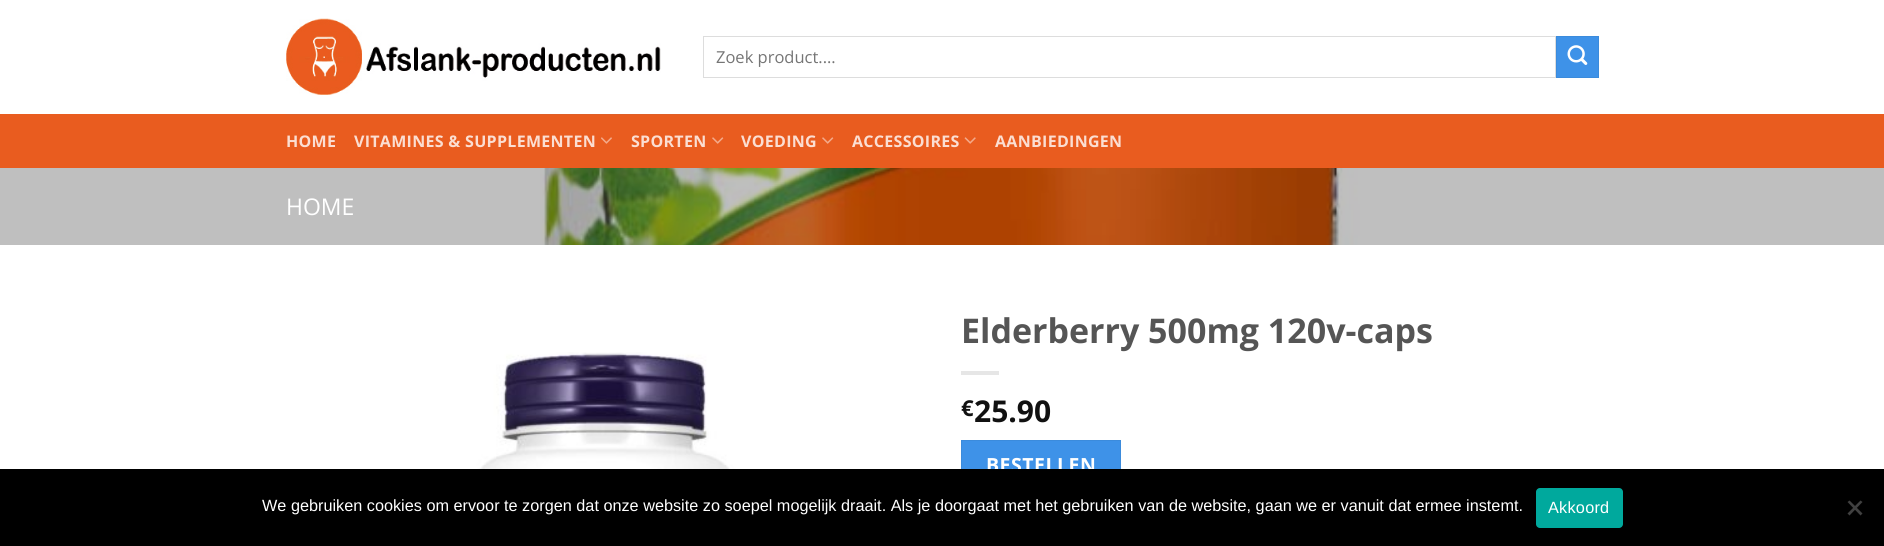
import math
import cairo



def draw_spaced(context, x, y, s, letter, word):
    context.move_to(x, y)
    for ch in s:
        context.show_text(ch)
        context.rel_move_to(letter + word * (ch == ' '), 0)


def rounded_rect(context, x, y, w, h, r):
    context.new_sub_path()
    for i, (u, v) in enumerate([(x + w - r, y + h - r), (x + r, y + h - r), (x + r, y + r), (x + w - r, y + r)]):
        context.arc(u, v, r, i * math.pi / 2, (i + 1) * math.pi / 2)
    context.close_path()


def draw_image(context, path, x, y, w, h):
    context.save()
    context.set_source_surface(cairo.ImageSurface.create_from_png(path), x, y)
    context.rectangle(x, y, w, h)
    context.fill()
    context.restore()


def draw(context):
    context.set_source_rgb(1, 1, 1)
    context.paint()
    draw_image(context, "images/1.png", 286, 18, 375, 77)
    context.rectangle(703.5, 36.5, 852, 41)
    context.set_source_rgb(221 / 255, 221 / 255, 221 / 255)
    context.set_line_width(1)
    context.stroke()
    context.set_source_rgb(62 / 255, 146 / 255, 232 / 255)
    context.rectangle(1556.5, 36.5, 42, 41)
    context.fill_preserve()
    context.set_source_rgb(59 / 255, 139 / 255, 220 / 255)
    context.stroke()
    draw_image(context, "images/2.png", 1567, 45, 21, 20)
    context.set_source_rgb(233 / 255, 92 / 255, 31 / 255)
    context.rectangle(0, 114, 1884, 54)
    context.fill()
    context.set_source_rgb(222 / 255, 95 / 255, 40 / 255)
    context.rectangle(286, 114, 1313, 1)
    context.fill()
    draw_image(context, "images/3.png", 601, 137, 11, 7)
    draw_image(context, "images/4.png", 712, 137, 12, 7)
    draw_image(context, "images/4.png", 822, 137, 12, 7)
    draw_image(context, "images/5.png", 964, 137, 12, 7)
    draw_image(context, "images/6.png", 0, 168, 1884, 77)
    draw_image(context, "images/7.png", 468, 352, 279, 117)
    context.set_source_rgb(230 / 255, 230 / 255, 230 / 255)
    context.rectangle(961, 371, 38, 4)
    context.fill()
    context.set_source_rgb(62 / 255, 146 / 255, 232 / 255)
    context.rectangle(962, 441, 158, 28)
    context.fill()
    context.rectangle(961.5, 440.5, 159, 49)
    context.set_source_rgb(59 / 255, 139 / 255, 220 / 255)
    context.stroke()
    context.select_font_face("Open Sans")
    context.set_font_size(16.5)
    context.set_source_rgb(117 / 255, 117 / 255, 117 / 255)
    context.move_to(716, 63)
    context.show_text("Zoek product....")
    context.select_font_face("Open Sans", cairo.FontSlant.NORMAL, cairo.FontWeight.BOLD)
    context.set_font_size(16)
    context.set_source_rgb(251 / 255, 222 / 255, 210 / 255)
    draw_spaced(context, 286, 147, "HOME", 0.3, 0)
    draw_spaced(context, 354, 147, "VITAMINES & SUPPLEMENTEN", 0.3, 0)
    draw_spaced(context, 631, 147, "SPORTEN", 0.3, 0)
    draw_spaced(context, 741, 147, "VOEDING", 0.3, 0)
    draw_spaced(context, 852, 147, "ACCESSOIRES", 0.3, 0)
    draw_spaced(context, 995, 147, "AANBIEDINGEN", 0.3, 0)
    context.select_font_face("Open Sans")
    context.set_font_size(23)
    context.set_source_rgb(1, 1, 1)
    context.move_to(286, 215)
    context.show_text("HOME")
    context.select_font_face("Open Sans", cairo.FontSlant.NORMAL, cairo.FontWeight.BOLD)
    context.set_font_size(34)
    context.set_source_rgb(85 / 255, 85 / 255, 85 / 255)
    context.move_to(961, 343)
    context.show_text("Elderberry 500mg 120v-caps")
    context.set_font_size(22)
    context.set_source_rgb(17 / 255, 17 / 255, 17 / 255)
    context.move_to(961, 416)
    context.show_text("€")
    context.set_font_size(30)
    context.move_to(974, 422)
    context.show_text("25.90")
    context.set_font_size(19.5)
    context.set_source_rgb(1, 1, 1)
    draw_spaced(context, 986, 472, "BESTELLEN", 0.5, 0)
    context.set_source_rgb(0, 0, 0)
    context.rectangle(0, 469, 1884, 77)
    context.fill()
    context.select_font_face("Liberation Sans")
    context.set_font_size(16.25)
    context.set_source_rgb(1, 1, 1)
    context.move_to(262, 511)
    context.show_text("We gebruiken cookies om ervoor te zorgen dat onze website zo soepel mogelijk draait. Als je doorgaat met het gebruiken van de website, gaan we er vanuit dat ermee instemt.")
    context.set_source_rgb(0, 169 / 255, 157 / 255)
    rounded_rect(context, 1536, 488, 87, 40, 4)
    context.fill()
    context.set_source_rgb(1, 1, 1)
    draw_spaced(context, 1548, 513, "Akkoord", 0.25, 0)
    context.set_source_rgb(64 / 255, 64 / 255, 64 / 255)
    context.new_path()
    context.move_to(1860.5, 500.5)
    context.line_to(1862.5, 502)
    context.line_to(1849.5, 515.5)
    context.line_to(1847.5, 513.5)
    context.close_path()
    context.fill()
    context.new_path()
    context.move_to(1847.5, 502)
    context.line_to(1849.5, 500.5)
    context.line_to(1862.5, 513.5)
    context.line_to(1860.5, 515.5)
    context.close_path()
    context.fill()


surface = cairo.ImageSurface(cairo.Format.RGB24, 1884, 546)
context = cairo.Context(surface)
options = cairo.FontOptions()
options.set_hint_metrics(cairo.HintMetrics.OFF)
options.set_hint_style(cairo.HintStyle.NONE)
context.set_font_options(options)
context.set_miter_limit(4)
draw(context)
surface.write_to_png("out.png")
